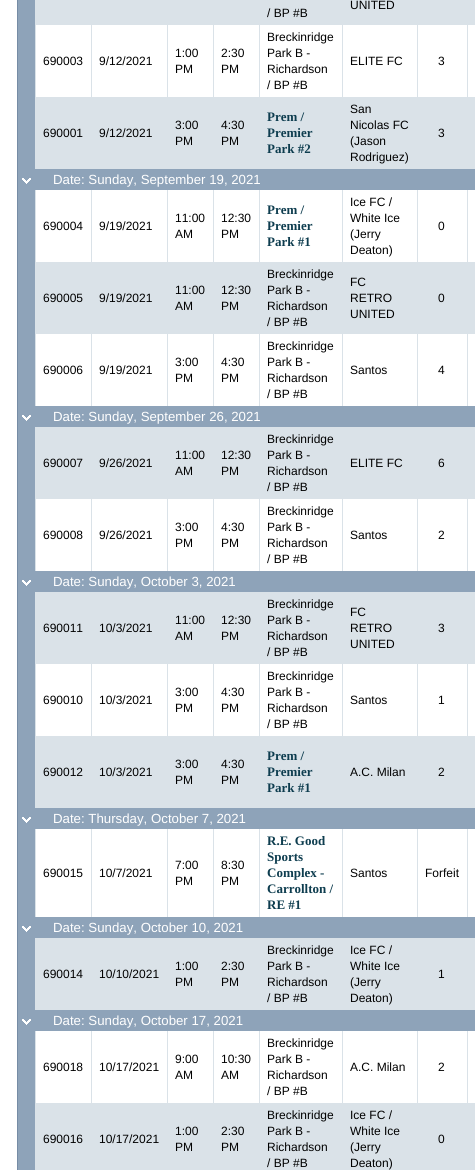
import math
import cairo



def draw_image(context, path, x, y, w, h):
    context.save()
    context.set_source_surface(cairo.ImageSurface.create_from_png(path), x, y)
    context.rectangle(x, y, w, h)
    context.fill()
    context.restore()


def draw(context):
    context.set_source_rgb(1, 1, 1)
    context.paint()
    context.rectangle(17.5, -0.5, 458, 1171)
    context.set_source_rgb(118 / 255, 140 / 255, 165 / 255)
    context.set_line_width(1)
    context.stroke()
    context.set_source_rgb(218 / 255, 226 / 255, 232 / 255)
    context.rectangle(35, 0, 440, 25)
    context.fill()
    context.set_source_rgb(142 / 255, 163 / 255, 185 / 255)
    context.rectangle(18, 0, 16, 24)
    context.fill()
    context.rectangle(34, 0, 1, 169)
    context.fill()
    context.rectangle(18, 24, 17, 1)
    context.fill()
    context.rectangle(18, 25, 16, 71)
    context.fill()
    context.rectangle(18, 96, 17, 1)
    context.fill()
    context.set_source_rgb(218 / 255, 226 / 255, 232 / 255)
    context.rectangle(35, 25, 1, 72)
    context.fill()
    context.rectangle(91, 25, 1, 72)
    context.fill()
    context.rectangle(167, 25, 1, 72)
    context.fill()
    context.rectangle(213, 25, 1, 72)
    context.fill()
    context.rectangle(259, 25, 1, 72)
    context.fill()
    context.rectangle(342, 25, 1, 72)
    context.fill()
    context.rectangle(417, 25, 1, 72)
    context.fill()
    context.rectangle(467, 25, 1, 72)
    context.fill()
    context.rectangle(35, 97, 440, 72)
    context.fill()
    context.set_source_rgb(142 / 255, 163 / 255, 185 / 255)
    context.rectangle(18, 97, 16, 71)
    context.fill()
    context.rectangle(18, 168, 17, 1)
    context.fill()
    context.rectangle(18, 169, 457, 21)
    context.fill()
    draw_image(context, "images/1.png", 22, 178, 9, 6)
    context.rectangle(18, 190, 16, 71)
    context.fill()
    context.rectangle(34, 190, 1, 216)
    context.fill()
    context.rectangle(18, 261, 17, 1)
    context.fill()
    context.set_source_rgb(218 / 255, 226 / 255, 232 / 255)
    context.rectangle(35, 190, 1, 72)
    context.fill()
    context.rectangle(91, 190, 1, 72)
    context.fill()
    context.rectangle(167, 190, 1, 72)
    context.fill()
    context.rectangle(213, 190, 1, 72)
    context.fill()
    context.rectangle(259, 190, 1, 72)
    context.fill()
    context.rectangle(342, 190, 1, 72)
    context.fill()
    context.rectangle(417, 190, 1, 72)
    context.fill()
    context.rectangle(467, 190, 1, 72)
    context.fill()
    context.rectangle(35, 262, 440, 72)
    context.fill()
    context.set_source_rgb(142 / 255, 163 / 255, 185 / 255)
    context.rectangle(18, 262, 16, 71)
    context.fill()
    context.rectangle(18, 333, 17, 1)
    context.fill()
    context.rectangle(18, 334, 16, 71)
    context.fill()
    context.rectangle(18, 405, 17, 1)
    context.fill()
    context.set_source_rgb(218 / 255, 226 / 255, 232 / 255)
    context.rectangle(35, 334, 1, 72)
    context.fill()
    context.rectangle(91, 334, 1, 72)
    context.fill()
    context.rectangle(167, 334, 1, 72)
    context.fill()
    context.rectangle(213, 334, 1, 72)
    context.fill()
    context.rectangle(259, 334, 1, 72)
    context.fill()
    context.rectangle(342, 334, 1, 72)
    context.fill()
    context.rectangle(417, 334, 1, 72)
    context.fill()
    context.rectangle(467, 334, 1, 72)
    context.fill()
    context.set_source_rgb(142 / 255, 163 / 255, 185 / 255)
    context.rectangle(18, 406, 457, 21)
    context.fill()
    draw_image(context, "images/1.png", 22, 415, 9, 6)
    context.set_source_rgb(218 / 255, 226 / 255, 232 / 255)
    context.rectangle(35, 427, 440, 72)
    context.fill()
    context.set_source_rgb(142 / 255, 163 / 255, 185 / 255)
    context.rectangle(18, 427, 16, 71)
    context.fill()
    context.rectangle(34, 427, 1, 144)
    context.fill()
    context.rectangle(18, 498, 17, 1)
    context.fill()
    context.rectangle(18, 499, 16, 71)
    context.fill()
    context.rectangle(18, 570, 17, 1)
    context.fill()
    context.set_source_rgb(218 / 255, 226 / 255, 232 / 255)
    context.rectangle(35, 499, 1, 72)
    context.fill()
    context.rectangle(91, 499, 1, 72)
    context.fill()
    context.rectangle(167, 499, 1, 72)
    context.fill()
    context.rectangle(213, 499, 1, 72)
    context.fill()
    context.rectangle(259, 499, 1, 72)
    context.fill()
    context.rectangle(342, 499, 1, 72)
    context.fill()
    context.rectangle(417, 499, 1, 72)
    context.fill()
    context.rectangle(467, 499, 1, 72)
    context.fill()
    context.set_source_rgb(142 / 255, 163 / 255, 185 / 255)
    context.rectangle(18, 571, 457, 21)
    context.fill()
    draw_image(context, "images/1.png", 22, 580, 9, 6)
    context.set_source_rgb(218 / 255, 226 / 255, 232 / 255)
    context.rectangle(35, 592, 440, 72)
    context.fill()
    context.set_source_rgb(142 / 255, 163 / 255, 185 / 255)
    context.rectangle(18, 592, 16, 71)
    context.fill()
    context.rectangle(34, 592, 1, 216)
    context.fill()
    context.rectangle(18, 663, 17, 1)
    context.fill()
    context.rectangle(18, 664, 16, 71)
    context.fill()
    context.rectangle(18, 735, 17, 1)
    context.fill()
    context.set_source_rgb(218 / 255, 226 / 255, 232 / 255)
    context.rectangle(35, 664, 1, 72)
    context.fill()
    context.rectangle(91, 664, 1, 72)
    context.fill()
    context.rectangle(167, 664, 1, 72)
    context.fill()
    context.rectangle(213, 664, 1, 72)
    context.fill()
    context.rectangle(259, 664, 1, 72)
    context.fill()
    context.rectangle(342, 664, 1, 72)
    context.fill()
    context.rectangle(417, 664, 1, 72)
    context.fill()
    context.rectangle(467, 664, 1, 72)
    context.fill()
    context.rectangle(35, 736, 440, 72)
    context.fill()
    context.set_source_rgb(142 / 255, 163 / 255, 185 / 255)
    context.rectangle(18, 736, 16, 71)
    context.fill()
    context.rectangle(18, 807, 17, 1)
    context.fill()
    context.rectangle(18, 808, 457, 21)
    context.fill()
    draw_image(context, "images/1.png", 22, 817, 9, 6)
    context.rectangle(18, 829, 16, 87)
    context.fill()
    context.rectangle(34, 829, 1, 88)
    context.fill()
    context.rectangle(18, 916, 17, 1)
    context.fill()
    context.set_source_rgb(218 / 255, 226 / 255, 232 / 255)
    context.rectangle(35, 829, 1, 88)
    context.fill()
    context.rectangle(91, 829, 1, 88)
    context.fill()
    context.rectangle(167, 829, 1, 88)
    context.fill()
    context.rectangle(213, 829, 1, 88)
    context.fill()
    context.rectangle(259, 829, 1, 88)
    context.fill()
    context.rectangle(342, 829, 1, 88)
    context.fill()
    context.rectangle(417, 829, 1, 88)
    context.fill()
    context.rectangle(467, 829, 1, 88)
    context.fill()
    context.set_source_rgb(142 / 255, 163 / 255, 185 / 255)
    context.rectangle(18, 917, 457, 21)
    context.fill()
    draw_image(context, "images/1.png", 22, 926, 9, 6)
    context.set_source_rgb(218 / 255, 226 / 255, 232 / 255)
    context.rectangle(35, 938, 440, 72)
    context.fill()
    context.set_source_rgb(142 / 255, 163 / 255, 185 / 255)
    context.rectangle(18, 938, 16, 71)
    context.fill()
    context.rectangle(34, 938, 1, 72)
    context.fill()
    context.rectangle(18, 1009, 17, 1)
    context.fill()
    context.rectangle(18, 1010, 457, 21)
    context.fill()
    draw_image(context, "images/1.png", 22, 1019, 9, 6)
    context.rectangle(18, 1031, 16, 71)
    context.fill()
    context.rectangle(34, 1031, 1, 72)
    context.fill()
    context.rectangle(18, 1102, 17, 1)
    context.fill()
    context.set_source_rgb(218 / 255, 226 / 255, 232 / 255)
    context.rectangle(35, 1031, 1, 72)
    context.fill()
    context.rectangle(91, 1031, 1, 72)
    context.fill()
    context.rectangle(167, 1031, 1, 72)
    context.fill()
    context.rectangle(213, 1031, 1, 72)
    context.fill()
    context.rectangle(259, 1031, 1, 72)
    context.fill()
    context.rectangle(342, 1031, 1, 72)
    context.fill()
    context.rectangle(417, 1031, 1, 72)
    context.fill()
    context.rectangle(467, 1031, 1, 72)
    context.fill()
    context.rectangle(35, 1103, 440, 67)
    context.fill()
    context.set_source_rgb(142 / 255, 163 / 255, 185 / 255)
    context.rectangle(18, 1103, 17, 67)
    context.fill()
    context.select_font_face("Liberation Sans")
    context.set_font_size(12)
    context.set_source_rgb(0, 0, 0)
    context.move_to(350, 9)
    context.show_text("UNITED")
    context.move_to(267, 17)
    context.show_text("/ BP #B")
    context.move_to(43, 65)
    context.show_text("690003")
    context.move_to(99, 65)
    context.show_text("9/12/2021")
    context.move_to(175, 57)
    context.show_text("1:00")
    context.move_to(175, 73)
    context.show_text("PM")
    context.move_to(221, 57)
    context.show_text("2:30")
    context.move_to(221, 73)
    context.show_text("PM")
    context.move_to(267, 41)
    context.show_text("Breckinridge")
    context.move_to(267, 57)
    context.show_text("Park B -")
    context.move_to(267, 73)
    context.show_text("Richardson")
    context.move_to(267, 89)
    context.show_text("/ BP #B")
    context.move_to(350, 65)
    context.show_text("ELITE FC")
    context.move_to(438, 65)
    context.show_text("3")
    context.move_to(43, 137)
    context.show_text("690001")
    context.move_to(99, 137)
    context.show_text("9/12/2021")
    context.move_to(175, 129)
    context.show_text("3:00")
    context.move_to(175, 145)
    context.show_text("PM")
    context.move_to(221, 129)
    context.show_text("4:30")
    context.move_to(221, 145)
    context.show_text("PM")
    context.select_font_face("Liberation Serif", cairo.FontSlant.NORMAL, cairo.FontWeight.BOLD)
    context.set_font_size(13)
    context.set_source_rgb(14 / 255, 61 / 255, 79 / 255)
    context.move_to(267, 121)
    context.show_text("Prem /")
    context.move_to(267, 137)
    context.show_text("Premier")
    context.move_to(267, 153)
    context.show_text("Park #2")
    context.select_font_face("Liberation Sans")
    context.set_font_size(12)
    context.set_source_rgb(0, 0, 0)
    context.move_to(350, 113)
    context.show_text("San")
    context.move_to(350, 129)
    context.show_text("Nicolas FC")
    context.move_to(350, 145)
    context.show_text("(Jason")
    context.move_to(350, 161)
    context.show_text("Rodriguez)")
    context.move_to(438, 137)
    context.show_text("3")
    context.set_font_size(13.25)
    context.set_source_rgb(1, 1, 1)
    context.move_to(53, 184)
    context.show_text("Date: Sunday, September 19, 2021")
    context.set_font_size(12)
    context.set_source_rgb(0, 0, 0)
    context.move_to(43, 230)
    context.show_text("690004")
    context.move_to(99, 230)
    context.show_text("9/19/2021")
    context.move_to(175, 222)
    context.show_text("11:00")
    context.move_to(175, 238)
    context.show_text("AM")
    context.move_to(221, 222)
    context.show_text("12:30")
    context.move_to(221, 238)
    context.show_text("PM")
    context.select_font_face("Liberation Serif", cairo.FontSlant.NORMAL, cairo.FontWeight.BOLD)
    context.set_font_size(13)
    context.set_source_rgb(14 / 255, 61 / 255, 79 / 255)
    context.move_to(267, 214)
    context.show_text("Prem /")
    context.move_to(267, 230)
    context.show_text("Premier")
    context.move_to(267, 246)
    context.show_text("Park #1")
    context.select_font_face("Liberation Sans")
    context.set_font_size(12)
    context.set_source_rgb(0, 0, 0)
    context.move_to(350, 206)
    context.show_text("Ice FC /")
    context.move_to(350, 222)
    context.show_text("White Ice")
    context.move_to(350, 238)
    context.show_text("(Jerry")
    context.move_to(350, 254)
    context.show_text("Deaton)")
    context.move_to(438, 230)
    context.show_text("0")
    context.move_to(43, 302)
    context.show_text("690005")
    context.move_to(99, 302)
    context.show_text("9/19/2021")
    context.move_to(175, 294)
    context.show_text("11:00")
    context.move_to(175, 310)
    context.show_text("AM")
    context.move_to(221, 294)
    context.show_text("12:30")
    context.move_to(221, 310)
    context.show_text("PM")
    context.move_to(267, 278)
    context.show_text("Breckinridge")
    context.move_to(267, 294)
    context.show_text("Park B -")
    context.move_to(267, 310)
    context.show_text("Richardson")
    context.move_to(267, 326)
    context.show_text("/ BP #B")
    context.move_to(350, 286)
    context.show_text("FC")
    context.move_to(350, 302)
    context.show_text("RETRO")
    context.move_to(350, 318)
    context.show_text("UNITED")
    context.move_to(438, 302)
    context.show_text("0")
    context.move_to(43, 374)
    context.show_text("690006")
    context.move_to(99, 374)
    context.show_text("9/19/2021")
    context.move_to(175, 366)
    context.show_text("3:00")
    context.move_to(175, 382)
    context.show_text("PM")
    context.move_to(221, 366)
    context.show_text("4:30")
    context.move_to(221, 382)
    context.show_text("PM")
    context.move_to(267, 350)
    context.show_text("Breckinridge")
    context.move_to(267, 366)
    context.show_text("Park B -")
    context.move_to(267, 382)
    context.show_text("Richardson")
    context.move_to(267, 398)
    context.show_text("/ BP #B")
    context.move_to(350, 374)
    context.show_text("Santos")
    context.move_to(438, 374)
    context.show_text("4")
    context.set_font_size(13.25)
    context.set_source_rgb(1, 1, 1)
    context.move_to(53, 421)
    context.show_text("Date: Sunday, September 26, 2021")
    context.set_font_size(12)
    context.set_source_rgb(0, 0, 0)
    context.move_to(43, 467)
    context.show_text("690007")
    context.move_to(99, 467)
    context.show_text("9/26/2021")
    context.move_to(175, 459)
    context.show_text("11:00")
    context.move_to(175, 475)
    context.show_text("AM")
    context.move_to(221, 459)
    context.show_text("12:30")
    context.move_to(221, 475)
    context.show_text("PM")
    context.move_to(267, 443)
    context.show_text("Breckinridge")
    context.move_to(267, 459)
    context.show_text("Park B -")
    context.move_to(267, 475)
    context.show_text("Richardson")
    context.move_to(267, 491)
    context.show_text("/ BP #B")
    context.move_to(350, 467)
    context.show_text("ELITE FC")
    context.move_to(438, 467)
    context.show_text("6")
    context.move_to(43, 539)
    context.show_text("690008")
    context.move_to(99, 539)
    context.show_text("9/26/2021")
    context.move_to(175, 531)
    context.show_text("3:00")
    context.move_to(175, 547)
    context.show_text("PM")
    context.move_to(221, 531)
    context.show_text("4:30")
    context.move_to(221, 547)
    context.show_text("PM")
    context.move_to(267, 515)
    context.show_text("Breckinridge")
    context.move_to(267, 531)
    context.show_text("Park B -")
    context.move_to(267, 547)
    context.show_text("Richardson")
    context.move_to(267, 563)
    context.show_text("/ BP #B")
    context.move_to(350, 539)
    context.show_text("Santos")
    context.move_to(438, 539)
    context.show_text("2")
    context.set_font_size(13.25)
    context.set_source_rgb(1, 1, 1)
    context.move_to(53, 586)
    context.show_text("Date: Sunday, October 3, 2021")
    context.set_font_size(12)
    context.set_source_rgb(0, 0, 0)
    context.move_to(43, 632)
    context.show_text("690011")
    context.move_to(99, 632)
    context.show_text("10/3/2021")
    context.move_to(175, 624)
    context.show_text("11:00")
    context.move_to(175, 640)
    context.show_text("AM")
    context.move_to(221, 624)
    context.show_text("12:30")
    context.move_to(221, 640)
    context.show_text("PM")
    context.move_to(267, 608)
    context.show_text("Breckinridge")
    context.move_to(267, 624)
    context.show_text("Park B -")
    context.move_to(267, 640)
    context.show_text("Richardson")
    context.move_to(267, 656)
    context.show_text("/ BP #B")
    context.move_to(350, 616)
    context.show_text("FC")
    context.move_to(350, 632)
    context.show_text("RETRO")
    context.move_to(350, 648)
    context.show_text("UNITED")
    context.move_to(438, 632)
    context.show_text("3")
    context.move_to(43, 704)
    context.show_text("690010")
    context.move_to(99, 704)
    context.show_text("10/3/2021")
    context.move_to(175, 696)
    context.show_text("3:00")
    context.move_to(175, 712)
    context.show_text("PM")
    context.move_to(221, 696)
    context.show_text("4:30")
    context.move_to(221, 712)
    context.show_text("PM")
    context.move_to(267, 680)
    context.show_text("Breckinridge")
    context.move_to(267, 696)
    context.show_text("Park B -")
    context.move_to(267, 712)
    context.show_text("Richardson")
    context.move_to(267, 728)
    context.show_text("/ BP #B")
    context.move_to(350, 704)
    context.show_text("Santos")
    context.move_to(438, 704)
    context.show_text("1")
    context.move_to(43, 776)
    context.show_text("690012")
    context.move_to(99, 776)
    context.show_text("10/3/2021")
    context.move_to(175, 768)
    context.show_text("3:00")
    context.move_to(175, 784)
    context.show_text("PM")
    context.move_to(221, 768)
    context.show_text("4:30")
    context.move_to(221, 784)
    context.show_text("PM")
    context.select_font_face("Liberation Serif", cairo.FontSlant.NORMAL, cairo.FontWeight.BOLD)
    context.set_font_size(13)
    context.set_source_rgb(14 / 255, 61 / 255, 79 / 255)
    context.move_to(267, 760)
    context.show_text("Prem /")
    context.move_to(267, 776)
    context.show_text("Premier")
    context.move_to(267, 792)
    context.show_text("Park #1")
    context.select_font_face("Liberation Sans")
    context.set_font_size(12)
    context.set_source_rgb(0, 0, 0)
    context.move_to(350, 776)
    context.show_text("A.C. Milan")
    context.move_to(438, 776)
    context.show_text("2")
    context.set_font_size(13.25)
    context.set_source_rgb(1, 1, 1)
    context.move_to(53, 823)
    context.show_text("Date: Thursday, October 7, 2021")
    context.set_font_size(12)
    context.set_source_rgb(0, 0, 0)
    context.move_to(43, 877)
    context.show_text("690015")
    context.move_to(99, 877)
    context.show_text("10/7/2021")
    context.move_to(175, 869)
    context.show_text("7:00")
    context.move_to(175, 885)
    context.show_text("PM")
    context.move_to(221, 869)
    context.show_text("8:30")
    context.move_to(221, 885)
    context.show_text("PM")
    context.select_font_face("Liberation Serif", cairo.FontSlant.NORMAL, cairo.FontWeight.BOLD)
    context.set_font_size(13)
    context.set_source_rgb(14 / 255, 61 / 255, 79 / 255)
    context.move_to(267, 845)
    context.show_text("R.E. Good")
    context.move_to(267, 861)
    context.show_text("Sports")
    context.move_to(267, 877)
    context.show_text("Complex -")
    context.move_to(267, 893)
    context.show_text("Carrollton /")
    context.move_to(267, 909)
    context.show_text("RE #1")
    context.select_font_face("Liberation Sans")
    context.set_font_size(12)
    context.set_source_rgb(0, 0, 0)
    context.move_to(350, 877)
    context.show_text("Santos")
    context.move_to(425, 877)
    context.show_text("Forfeit")
    context.set_font_size(13.25)
    context.set_source_rgb(1, 1, 1)
    context.move_to(53, 932)
    context.show_text("Date: Sunday, October 10, 2021")
    context.set_font_size(12)
    context.set_source_rgb(0, 0, 0)
    context.move_to(43, 978)
    context.show_text("690014")
    context.move_to(99, 978)
    context.show_text("10/10/2021")
    context.move_to(175, 970)
    context.show_text("1:00")
    context.move_to(175, 986)
    context.show_text("PM")
    context.move_to(221, 970)
    context.show_text("2:30")
    context.move_to(221, 986)
    context.show_text("PM")
    context.move_to(267, 954)
    context.show_text("Breckinridge")
    context.move_to(267, 970)
    context.show_text("Park B -")
    context.move_to(267, 986)
    context.show_text("Richardson")
    context.move_to(267, 1002)
    context.show_text("/ BP #B")
    context.move_to(350, 954)
    context.show_text("Ice FC /")
    context.move_to(350, 970)
    context.show_text("White Ice")
    context.move_to(350, 986)
    context.show_text("(Jerry")
    context.move_to(350, 1002)
    context.show_text("Deaton)")
    context.move_to(438, 978)
    context.show_text("1")
    context.set_font_size(13.25)
    context.set_source_rgb(1, 1, 1)
    context.move_to(53, 1025)
    context.show_text("Date: Sunday, October 17, 2021")
    context.set_font_size(12)
    context.set_source_rgb(0, 0, 0)
    context.move_to(43, 1071)
    context.show_text("690018")
    context.move_to(99, 1071)
    context.show_text("10/17/2021")
    context.move_to(175, 1063)
    context.show_text("9:00")
    context.move_to(175, 1079)
    context.show_text("AM")
    context.move_to(221, 1063)
    context.show_text("10:30")
    context.move_to(221, 1079)
    context.show_text("AM")
    context.move_to(267, 1047)
    context.show_text("Breckinridge")
    context.move_to(267, 1063)
    context.show_text("Park B -")
    context.move_to(267, 1079)
    context.show_text("Richardson")
    context.move_to(267, 1095)
    context.show_text("/ BP #B")
    context.move_to(350, 1071)
    context.show_text("A.C. Milan")
    context.move_to(438, 1071)
    context.show_text("2")
    context.move_to(43, 1143)
    context.show_text("690016")
    context.move_to(99, 1143)
    context.show_text("10/17/2021")
    context.move_to(175, 1135)
    context.show_text("1:00")
    context.move_to(175, 1151)
    context.show_text("PM")
    context.move_to(221, 1135)
    context.show_text("2:30")
    context.move_to(221, 1151)
    context.show_text("PM")
    context.move_to(267, 1119)
    context.show_text("Breckinridge")
    context.move_to(267, 1135)
    context.show_text("Park B -")
    context.move_to(267, 1151)
    context.show_text("Richardson")
    context.move_to(267, 1167)
    context.show_text("/ BP #B")
    context.move_to(350, 1119)
    context.show_text("Ice FC /")
    context.move_to(350, 1135)
    context.show_text("White Ice")
    context.move_to(350, 1151)
    context.show_text("(Jerry")
    context.move_to(350, 1167)
    context.show_text("Deaton)")
    context.move_to(438, 1143)
    context.show_text("0")


surface = cairo.ImageSurface(cairo.Format.RGB24, 475, 1170)
context = cairo.Context(surface)
options = cairo.FontOptions()
options.set_hint_metrics(cairo.HintMetrics.OFF)
options.set_hint_style(cairo.HintStyle.NONE)
context.set_font_options(options)
context.set_miter_limit(4)
draw(context)
surface.write_to_png("out.png")
